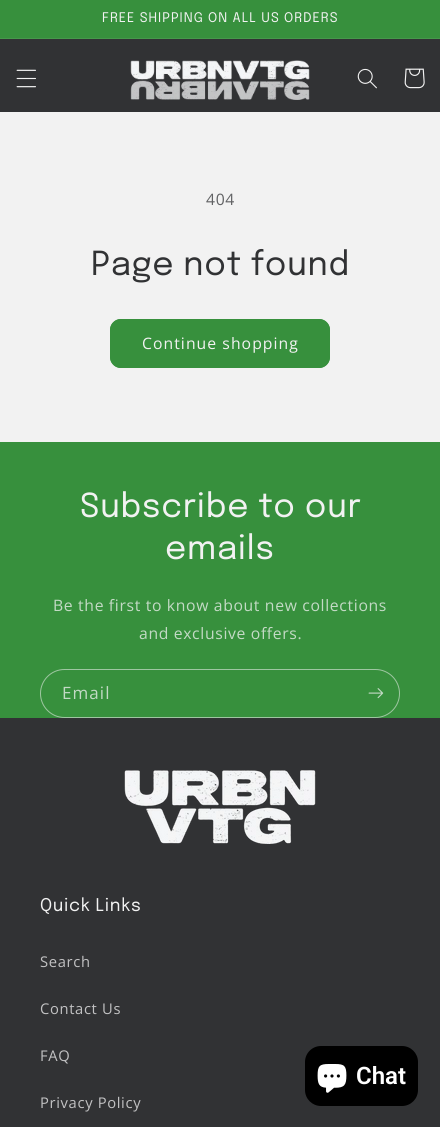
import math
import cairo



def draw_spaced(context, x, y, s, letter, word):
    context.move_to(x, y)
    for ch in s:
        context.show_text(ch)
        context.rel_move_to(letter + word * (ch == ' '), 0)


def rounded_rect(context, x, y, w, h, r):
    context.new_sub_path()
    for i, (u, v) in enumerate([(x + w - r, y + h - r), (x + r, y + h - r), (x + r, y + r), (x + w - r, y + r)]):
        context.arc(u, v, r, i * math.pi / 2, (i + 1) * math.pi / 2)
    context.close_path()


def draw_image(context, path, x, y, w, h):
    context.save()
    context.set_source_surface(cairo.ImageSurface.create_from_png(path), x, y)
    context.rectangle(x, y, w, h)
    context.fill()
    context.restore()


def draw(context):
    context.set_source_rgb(242 / 255, 242 / 255, 242 / 255)
    context.paint()
    context.set_source_rgb(55 / 255, 144 / 255, 61 / 255)
    context.rectangle(0, 0, 440, 38)
    context.fill()
    context.set_source_rgb(70 / 255, 152 / 255, 75 / 255)
    context.rectangle(0, 38, 440, 1)
    context.fill()
    context.set_source_rgb(49 / 255, 50 / 255, 52 / 255)
    context.rectangle(0, 39, 440, 73)
    context.fill()
    draw_image(context, "images/1.png", 16, 69, 20, 19)
    draw_image(context, "images/2.png", 130, 60, 180, 40)
    draw_image(context, "images/3.png", 357, 68, 20, 21)
    draw_image(context, "images/4.png", 404, 68, 21, 21)
    context.set_source_rgb(55 / 255, 144 / 255, 61 / 255)
    rounded_rect(context, 110, 319, 220, 49, 11)
    context.fill()
    rounded_rect(context, 110.5, 319.5, 219, 48, 10.5)
    context.set_line_width(1)
    context.stroke()
    context.rectangle(0, 442, 440, 276)
    context.fill()
    rounded_rect(context, 40.5, 669.5, 359, 48, 24)
    context.set_source_rgb(158 / 255, 198 / 255, 161 / 255)
    context.stroke()
    draw_image(context, "images/5.png", 368, 688, 16, 11)
    context.set_source_rgb(49 / 255, 50 / 255, 52 / 255)
    context.rectangle(0, 718, 440, 409)
    context.fill()
    draw_image(context, "images/6.png", 124, 770, 192, 74)
    context.set_source_rgb(0, 0, 0)
    rounded_rect(context, 305, 1046, 113, 60, 16)
    context.fill()
    draw_image(context, "images/7.png", 317, 1064, 30, 29)
    context.select_font_face("Epilogue")
    context.set_font_size(13.25)
    context.set_source_rgb(242 / 255, 242 / 255, 242 / 255)
    draw_spaced(context, 102, 22, "FREE SHIPPING ON ALL US ORDERS", 1.05, 0)
    context.select_font_face("Open Sans")
    context.set_font_size(15.75)
    context.set_source_rgb(97 / 255, 98 / 255, 100 / 255)
    draw_spaced(context, 206, 205, "404", 0.65, 0)
    context.select_font_face("Epilogue")
    context.set_font_size(33)
    context.set_source_rgb(49 / 255, 50 / 255, 52 / 255)
    draw_spaced(context, 91, 275, "Page not found", 0.7, 0)
    context.select_font_face("Open Sans")
    context.set_font_size(15.75)
    context.set_source_rgb(242 / 255, 242 / 255, 242 / 255)
    draw_spaced(context, 142, 349, "Continue shopping", 1.05, 0)
    context.select_font_face("Epilogue")
    context.set_font_size(33)
    draw_spaced(context, 80, 517, "Subscribe to our", 0.7, 0)
    draw_spaced(context, 165, 559, "emails", 0.7, 0)
    context.select_font_face("Open Sans")
    context.set_font_size(15.75)
    context.set_source_rgb(195 / 255, 218 / 255, 197 / 255)
    draw_spaced(context, 53, 611, "Be the first to know about new collections", 0.65, 0)
    draw_spaced(context, 139, 639, "and exclusive offers.", 0.65, 0)
    context.set_font_size(17)
    draw_spaced(context, 62, 699, "Email", 1.05, 0)
    context.select_font_face("Epilogue")
    context.set_font_size(17.5)
    context.set_source_rgb(242 / 255, 242 / 255, 242 / 255)
    draw_spaced(context, 40, 911, "Quick Links", 0.7, 0)
    context.select_font_face("Open Sans")
    context.set_font_size(14.75)
    context.set_source_rgb(194 / 255, 194 / 255, 195 / 255)
    draw_spaced(context, 40, 967, "Search", 0.65, 0)
    draw_spaced(context, 40, 1014, "Contact Us", 0.65, 0)
    draw_spaced(context, 40, 1061, "FAQ", 0.65, 0)
    draw_spaced(context, 40, 1108, "Privacy Policy", 0.65, 0)
    context.select_font_face("Roboto SemiBold")
    context.set_font_size(24)
    context.set_source_rgb(1, 1, 1)
    context.move_to(356, 1084)
    context.show_text("Chat")


surface = cairo.ImageSurface(cairo.Format.RGB24, 440, 1127)
context = cairo.Context(surface)
options = cairo.FontOptions()
options.set_hint_metrics(cairo.HintMetrics.OFF)
options.set_hint_style(cairo.HintStyle.NONE)
context.set_font_options(options)
context.set_miter_limit(4)
draw(context)
surface.write_to_png("out.png")
